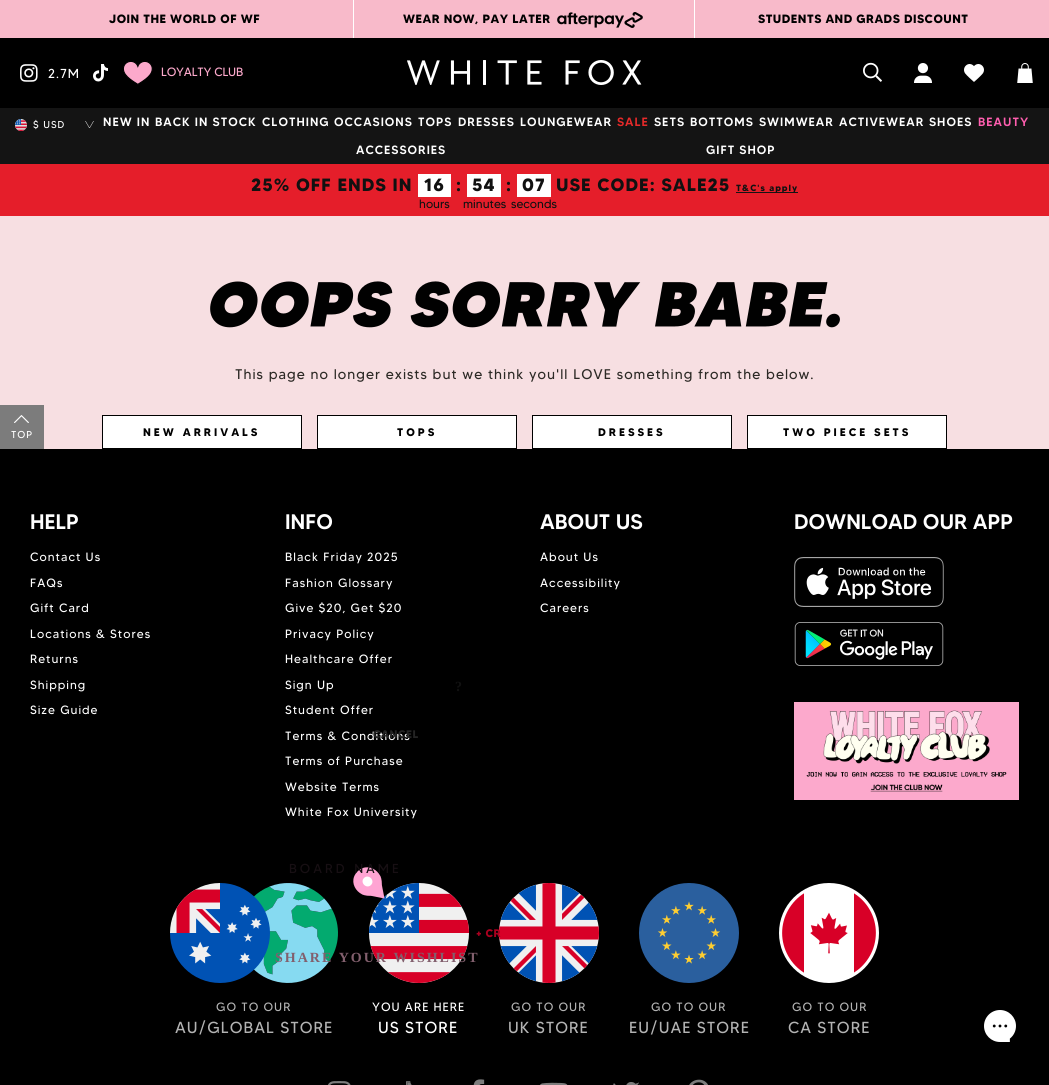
import math
import cairo



def draw_spaced(context, x, y, s, letter, word):
    context.move_to(x, y)
    for ch in s:
        context.show_text(ch)
        context.rel_move_to(letter + word * (ch == ' '), 0)


def draw_image(context, path, x, y, w, h):
    context.save()
    context.set_source_surface(cairo.ImageSurface.create_from_png(path), x, y)
    context.rectangle(x, y, w, h)
    context.fill()
    context.restore()


def draw(context):
    context.set_source_rgb(247 / 255, 223 / 255, 226 / 255)
    context.paint()
    context.set_source_rgb(248 / 255, 186 / 255, 202 / 255)
    context.rectangle(0, 0, 1049, 38)
    context.fill()
    context.set_source_rgb(1, 1, 1)
    context.rectangle(694, 0, 1, 38)
    context.fill()
    context.rectangle(353, 0, 1, 38)
    context.fill()
    draw_image(context, "images/1.png", 557, 12, 86, 16)
    context.set_source_rgb(0, 0, 0)
    context.rectangle(0, 38, 1049, 70)
    context.fill()
    draw_image(context, "images/2.png", 20, 64, 18, 18)
    draw_image(context, "images/3.png", 93, 64, 15, 18)
    draw_image(context, "images/4.png", 123, 61, 30, 24)
    draw_image(context, "images/5.png", 407, 60, 235, 25)
    draw_image(context, "images/6.png", 863, 62, 19, 20)
    draw_image(context, "images/7.png", 914, 63, 18, 20)
    draw_image(context, "images/8.png", 964, 64, 20, 18)
    draw_image(context, "images/9.png", 1017, 63, 16, 20)
    context.set_source_rgb(20 / 255, 20 / 255, 20 / 255)
    context.rectangle(0, 108, 1049, 56)
    context.fill()
    draw_image(context, "images/10.png", 15, 119, 12, 12)
    draw_image(context, "images/11.png", 85, 121, 9, 7)
    context.set_source_rgb(229 / 255, 30 / 255, 42 / 255)
    context.rectangle(0, 164, 1049, 52)
    context.fill()
    context.set_source_rgb(1, 1, 1)
    context.rectangle(418, 174, 33, 23)
    context.fill()
    context.rectangle(467, 174, 34, 23)
    context.fill()
    context.rectangle(517, 174, 34, 23)
    context.fill()
    context.set_source_rgb(20 / 255, 20 / 255, 20 / 255)
    context.rectangle(736, 192, 62, 1)
    context.fill()
    draw_image(context, "images/12.png", 210, 281, 630, 47)
    context.set_source_rgb(1, 1, 1)
    context.rectangle(102.5, 415.5, 199, 33)
    context.fill_preserve()
    context.set_source_rgb(0, 0, 0)
    context.set_line_width(1)
    context.stroke()
    context.set_source_rgb(1, 1, 1)
    context.rectangle(317.5, 415.5, 199, 33)
    context.fill_preserve()
    context.set_source_rgb(0, 0, 0)
    context.stroke()
    context.set_source_rgb(1, 1, 1)
    context.rectangle(532.5, 415.5, 199, 33)
    context.fill_preserve()
    context.set_source_rgb(0, 0, 0)
    context.stroke()
    context.set_source_rgb(1, 1, 1)
    context.rectangle(747.5, 415.5, 199, 33)
    context.fill_preserve()
    context.set_source_rgb(0, 0, 0)
    context.stroke()
    context.set_source_rgb(124 / 255, 124 / 255, 124 / 255)
    context.rectangle(0, 405, 44, 44)
    context.fill()
    draw_image(context, "images/13.png", 14, 415, 15, 8)
    context.set_source_rgb(0, 0, 0)
    context.rectangle(0, 449, 1049, 636)
    context.fill()
    draw_image(context, "images/14.png", 794, 557, 150, 50)
    draw_image(context, "images/15.png", 794, 622, 150, 44)
    draw_image(context, "images/16.png", 794, 702, 225, 98)
    draw_image(context, "images/18.png", 253, 883, 85, 100)
    draw_image(context, "images/17.png", 170, 883, 100, 100)
    draw_image(context, "images/19.png", 369, 883, 100, 100)
    context.set_source_rgb(1, 164 / 255, 211 / 255)
    context.new_path()
    context.move_to(357.5, 871.5)
    context.curve_to(370.5, 858.5, 390.5, 878.5, 377.5, 891.5)
    context.curve_to(364.5, 904.5, 344.5, 884.5, 357.5, 871.5)
    context.close_path()
    context.fill()
    context.new_path()
    context.move_to(361.5, 894)
    context.line_to(380, 875.5)
    context.line_to(384.5, 898.5)
    context.close_path()
    context.fill()
    context.set_source_rgb(1, 1, 1)
    context.new_path()
    context.move_to(364, 878)
    context.curve_to(368.5, 873.5, 375.5, 880.5, 371, 885)
    context.curve_to(366.5, 889.5, 359.5, 882.5, 364, 878)
    context.close_path()
    context.fill()
    draw_image(context, "images/20.png", 499, 883, 100, 100)
    draw_image(context, "images/21.png", 639, 883, 100, 100)
    draw_image(context, "images/22.png", 779, 883, 100, 100)
    draw_image(context, "images/23.png", 328, 1081, 23, 4)
    draw_image(context, "images/24.png", 406, 1081, 6, 4)
    draw_image(context, "images/25.png", 473, 1079, 12, 6)
    draw_image(context, "images/26.png", 540, 1082, 28, 3)
    draw_image(context, "images/27.png", 613, 1082, 27, 3)
    draw_image(context, "images/28.png", 689, 1079, 19, 6)
    draw_image(context, "images/29.png", 984, 1010, 32, 32)
    context.select_font_face("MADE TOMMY", cairo.FontSlant.NORMAL, cairo.FontWeight.BOLD)
    context.set_font_size(12)
    context.set_source_rgb(0, 0, 0)
    draw_spaced(context, 109, 23, "JOIN THE WORLD OF WF", 0.5, 0)
    draw_spaced(context, 403, 23, "WEAR NOW, PAY LATER", 0.5, 0)
    draw_spaced(context, 758, 23, "STUDENTS AND GRADS DISCOUNT", 0.5, 0)
    context.select_font_face("MADE TOMMY")
    context.set_font_size(13)
    context.set_source_rgb(1, 1, 1)
    draw_spaced(context, 48, 78, "2.7M", 1, 0)
    context.set_font_size(12)
    context.set_source_rgb(252 / 255, 169 / 255, 203 / 255)
    draw_spaced(context, 161, 76, "LOYALTY CLUB", -0.25, 0)
    context.set_font_size(10)
    context.set_source_rgb(1, 1, 1)
    draw_spaced(context, 33, 128, "$ USD", 1, 0)
    context.select_font_face("MADE TOMMY Medium")
    context.set_font_size(12)
    draw_spaced(context, 103, 126, "NEW IN", 1, 0)
    draw_spaced(context, 155, 126, "BACK IN STOCK", 1, 0)
    draw_spaced(context, 262, 126, "CLOTHING", 1, 0)
    draw_spaced(context, 334, 126, "OCCASIONS", 1, 0)
    draw_spaced(context, 418, 126, "TOPS", 1, 0)
    draw_spaced(context, 458, 126, "DRESSES", 1, 0)
    draw_spaced(context, 520, 126, "LOUNGEWEAR", 1, 0)
    context.set_source_rgb(232 / 255, 42 / 255, 42 / 255)
    draw_spaced(context, 617, 126, "SALE", 1, 0)
    context.set_source_rgb(1, 1, 1)
    draw_spaced(context, 654, 126, "SETS", 1, 0)
    draw_spaced(context, 690, 126, "BOTTOMS", 1, 0)
    draw_spaced(context, 759, 126, "SWIMWEAR", 1, 0)
    draw_spaced(context, 839, 126, "ACTIVEWEAR", 1, 0)
    draw_spaced(context, 929, 126, "SHOES", 1, 0)
    context.set_source_rgb(1, 94 / 255, 175 / 255)
    draw_spaced(context, 978, 126, "BEAUTY", 1, 0)
    context.set_source_rgb(1, 1, 1)
    draw_spaced(context, 356, 154, "ACCESSORIES", 1, 0)
    draw_spaced(context, 706, 154, "GIFT SHOP", 1, 0)
    context.select_font_face("MADE TOMMY", cairo.FontSlant.NORMAL, cairo.FontWeight.BOLD)
    context.set_font_size(17.75)
    context.set_source_rgb(17 / 255, 17 / 255, 17 / 255)
    draw_spaced(context, 251, 191, "25% OFF ENDS IN", 1, 0)
    draw_spaced(context, 424, 191, "16", 1, 0)
    context.select_font_face("MADE TOMMY")
    context.set_font_size(12)
    context.move_to(419, 208)
    context.show_text("hours")
    context.select_font_face("MADE TOMMY", cairo.FontSlant.NORMAL, cairo.FontWeight.BOLD)
    context.set_font_size(17.75)
    draw_spaced(context, 456, 191, ":", 1, 0)
    draw_spaced(context, 472, 191, "54", 1, 0)
    context.select_font_face("MADE TOMMY")
    context.set_font_size(12)
    context.move_to(463, 208)
    context.show_text("minutes")
    context.select_font_face("MADE TOMMY", cairo.FontSlant.NORMAL, cairo.FontWeight.BOLD)
    context.set_font_size(17.75)
    draw_spaced(context, 506, 191, ":", 1, 0)
    draw_spaced(context, 522, 191, "07", 1, 0)
    context.select_font_face("MADE TOMMY")
    context.set_font_size(12)
    context.move_to(511, 208)
    context.show_text("seconds")
    context.select_font_face("MADE TOMMY", cairo.FontSlant.NORMAL, cairo.FontWeight.BOLD)
    context.set_font_size(17.75)
    draw_spaced(context, 556, 191, "USE CODE: SALE25", 1, 0)
    context.set_font_size(9)
    draw_spaced(context, 736, 191, "T&C's apply", 1, 0)
    context.select_font_face("MADE TOMMY")
    context.set_font_size(14)
    context.set_source_rgb(45 / 255, 42 / 255, 38 / 255)
    draw_spaced(context, 235, 379, "This page no longer exists but we think you'll LOVE something from the below.", 1, 0)
    context.select_font_face("MADE TOMMY", cairo.FontSlant.NORMAL, cairo.FontWeight.BOLD)
    context.set_font_size(11)
    context.set_source_rgb(0, 0, 0)
    draw_spaced(context, 143, 436, "NEW ARRIVALS", 3, 0)
    draw_spaced(context, 397, 436, "TOPS", 3, 0)
    draw_spaced(context, 598, 436, "DRESSES", 3, 0)
    draw_spaced(context, 783, 436, "TWO PIECE SETS", 3, 0)
    context.select_font_face("MADE TOMMY")
    context.set_font_size(10)
    context.set_source_rgb(1, 1, 1)
    draw_spaced(context, 11, 438, "TOP", 1, 0)
    context.select_font_face("MADE TOMMY Medium")
    context.set_font_size(21)
    context.move_to(30, 529)
    context.show_text("HELP")
    context.select_font_face("MADE TOMMY")
    context.set_font_size(12)
    draw_spaced(context, 30, 561, "Contact Us", 1, 0)
    draw_spaced(context, 30, 587, "FAQs", 1, 0)
    draw_spaced(context, 30, 612, "Gift Card", 1, 0)
    draw_spaced(context, 30, 638, "Locations & Stores", 1, 0)
    draw_spaced(context, 30, 663, "Returns", 1, 0)
    draw_spaced(context, 30, 689, "Shipping", 1, 0)
    draw_spaced(context, 30, 714, "Size Guide", 1, 0)
    context.select_font_face("MADE TOMMY Medium")
    context.set_font_size(21)
    context.move_to(285, 529)
    context.show_text("INFO")
    context.select_font_face("MADE TOMMY")
    context.set_font_size(12)
    draw_spaced(context, 285, 561, "Black Friday 2025", 1, 0)
    draw_spaced(context, 285, 587, "Fashion Glossary", 1, 0)
    draw_spaced(context, 285, 612, "Give $20, Get $20", 1, 0)
    draw_spaced(context, 285, 638, "Privacy Policy", 1, 0)
    draw_spaced(context, 285, 663, "Healthcare Offer", 1, 0)
    draw_spaced(context, 285, 689, "Sign Up", 1, 0)
    draw_spaced(context, 285, 714, "Student Offer", 1, 0)
    draw_spaced(context, 285, 740, "Terms & Conditions", 1, 0)
    draw_spaced(context, 285, 765, "Terms of Purchase", 1, 0)
    draw_spaced(context, 285, 791, "Website Terms", 1, 0)
    draw_spaced(context, 285, 816, "White Fox University", 1, 0)
    context.select_font_face("MADE TOMMY Medium")
    context.set_font_size(21)
    context.move_to(540, 529)
    context.show_text("ABOUT US")
    context.select_font_face("MADE TOMMY")
    context.set_font_size(12)
    draw_spaced(context, 540, 561, "About Us", 1, 0)
    draw_spaced(context, 540, 587, "Accessibility", 1, 0)
    draw_spaced(context, 540, 612, "Careers", 1, 0)
    context.select_font_face("MADE TOMMY Medium")
    context.set_font_size(21)
    context.move_to(794, 529)
    context.show_text("DOWNLOAD OUR APP")
    context.select_font_face("MADE TOMMY")
    context.set_font_size(12)
    context.set_source_rgb(179 / 255, 179 / 255, 179 / 255)
    draw_spaced(context, 216, 1011, "GO TO OUR", 1, 0)
    context.set_font_size(16)
    draw_spaced(context, 175, 1033, "AU/GLOBAL STORE", 1, 0)
    context.set_font_size(12)
    context.set_source_rgb(1, 1, 1)
    draw_spaced(context, 372, 1011, "YOU ARE HERE", 1, 0)
    context.set_font_size(16)
    draw_spaced(context, 378, 1033, "US STORE", 1, 0)
    context.set_font_size(12)
    context.set_source_rgb(179 / 255, 179 / 255, 179 / 255)
    draw_spaced(context, 511, 1011, "GO TO OUR", 1, 0)
    context.set_font_size(16)
    draw_spaced(context, 508, 1033, "UK STORE", 1, 0)
    context.set_font_size(12)
    draw_spaced(context, 651, 1011, "GO TO OUR", 1, 0)
    context.set_font_size(16)
    draw_spaced(context, 629, 1033, "EU/UAE STORE", 1, 0)
    context.set_font_size(12)
    draw_spaced(context, 792, 1011, "GO TO OUR", 1, 0)
    context.set_font_size(16)
    draw_spaced(context, 788, 1033, "CA STORE", 1, 0)
    context.select_font_face("Liberation Serif", cairo.FontSlant.NORMAL, cairo.FontWeight.BOLD)
    context.set_font_size(14)
    context.set_source_rgb(17 / 255, 17 / 255, 17 / 255)
    draw_spaced(context, 455, 691, "?", 2, 0)
    context.select_font_face("MADE TOMMY", cairo.FontSlant.NORMAL, cairo.FontWeight.BOLD)
    context.set_font_size(11)
    context.set_source_rgb(36 / 255, 36 / 255, 36 / 255)
    draw_spaced(context, 373, 738, "CANCEL", 0.5, 0)
    context.select_font_face("MADE TOMMY")
    context.set_font_size(13)
    context.set_source_rgb(23 / 255, 15 / 255, 19 / 255)
    draw_spaced(context, 289, 873, "BOARD NAME", 3, 0)
    context.select_font_face("MADE TOMMY", cairo.FontSlant.NORMAL, cairo.FontWeight.BOLD)
    context.set_font_size(11)
    context.set_source_rgb(170 / 255, 0, 31 / 255)
    draw_spaced(context, 476, 937, "+ CR", 0.5, 0)
    context.select_font_face("Liberation Serif", cairo.FontSlant.NORMAL, cairo.FontWeight.BOLD)
    context.set_font_size(14)
    context.set_source_rgb(130 / 255, 95 / 255, 109 / 255)
    draw_spaced(context, 275, 962, "SHARE YOUR WISHLIST", 2, 0)


surface = cairo.ImageSurface(cairo.Format.RGB24, 1049, 1085)
context = cairo.Context(surface)
options = cairo.FontOptions()
options.set_hint_metrics(cairo.HintMetrics.OFF)
options.set_hint_style(cairo.HintStyle.NONE)
context.set_font_options(options)
context.set_miter_limit(4)
draw(context)
surface.write_to_png("out.png")
